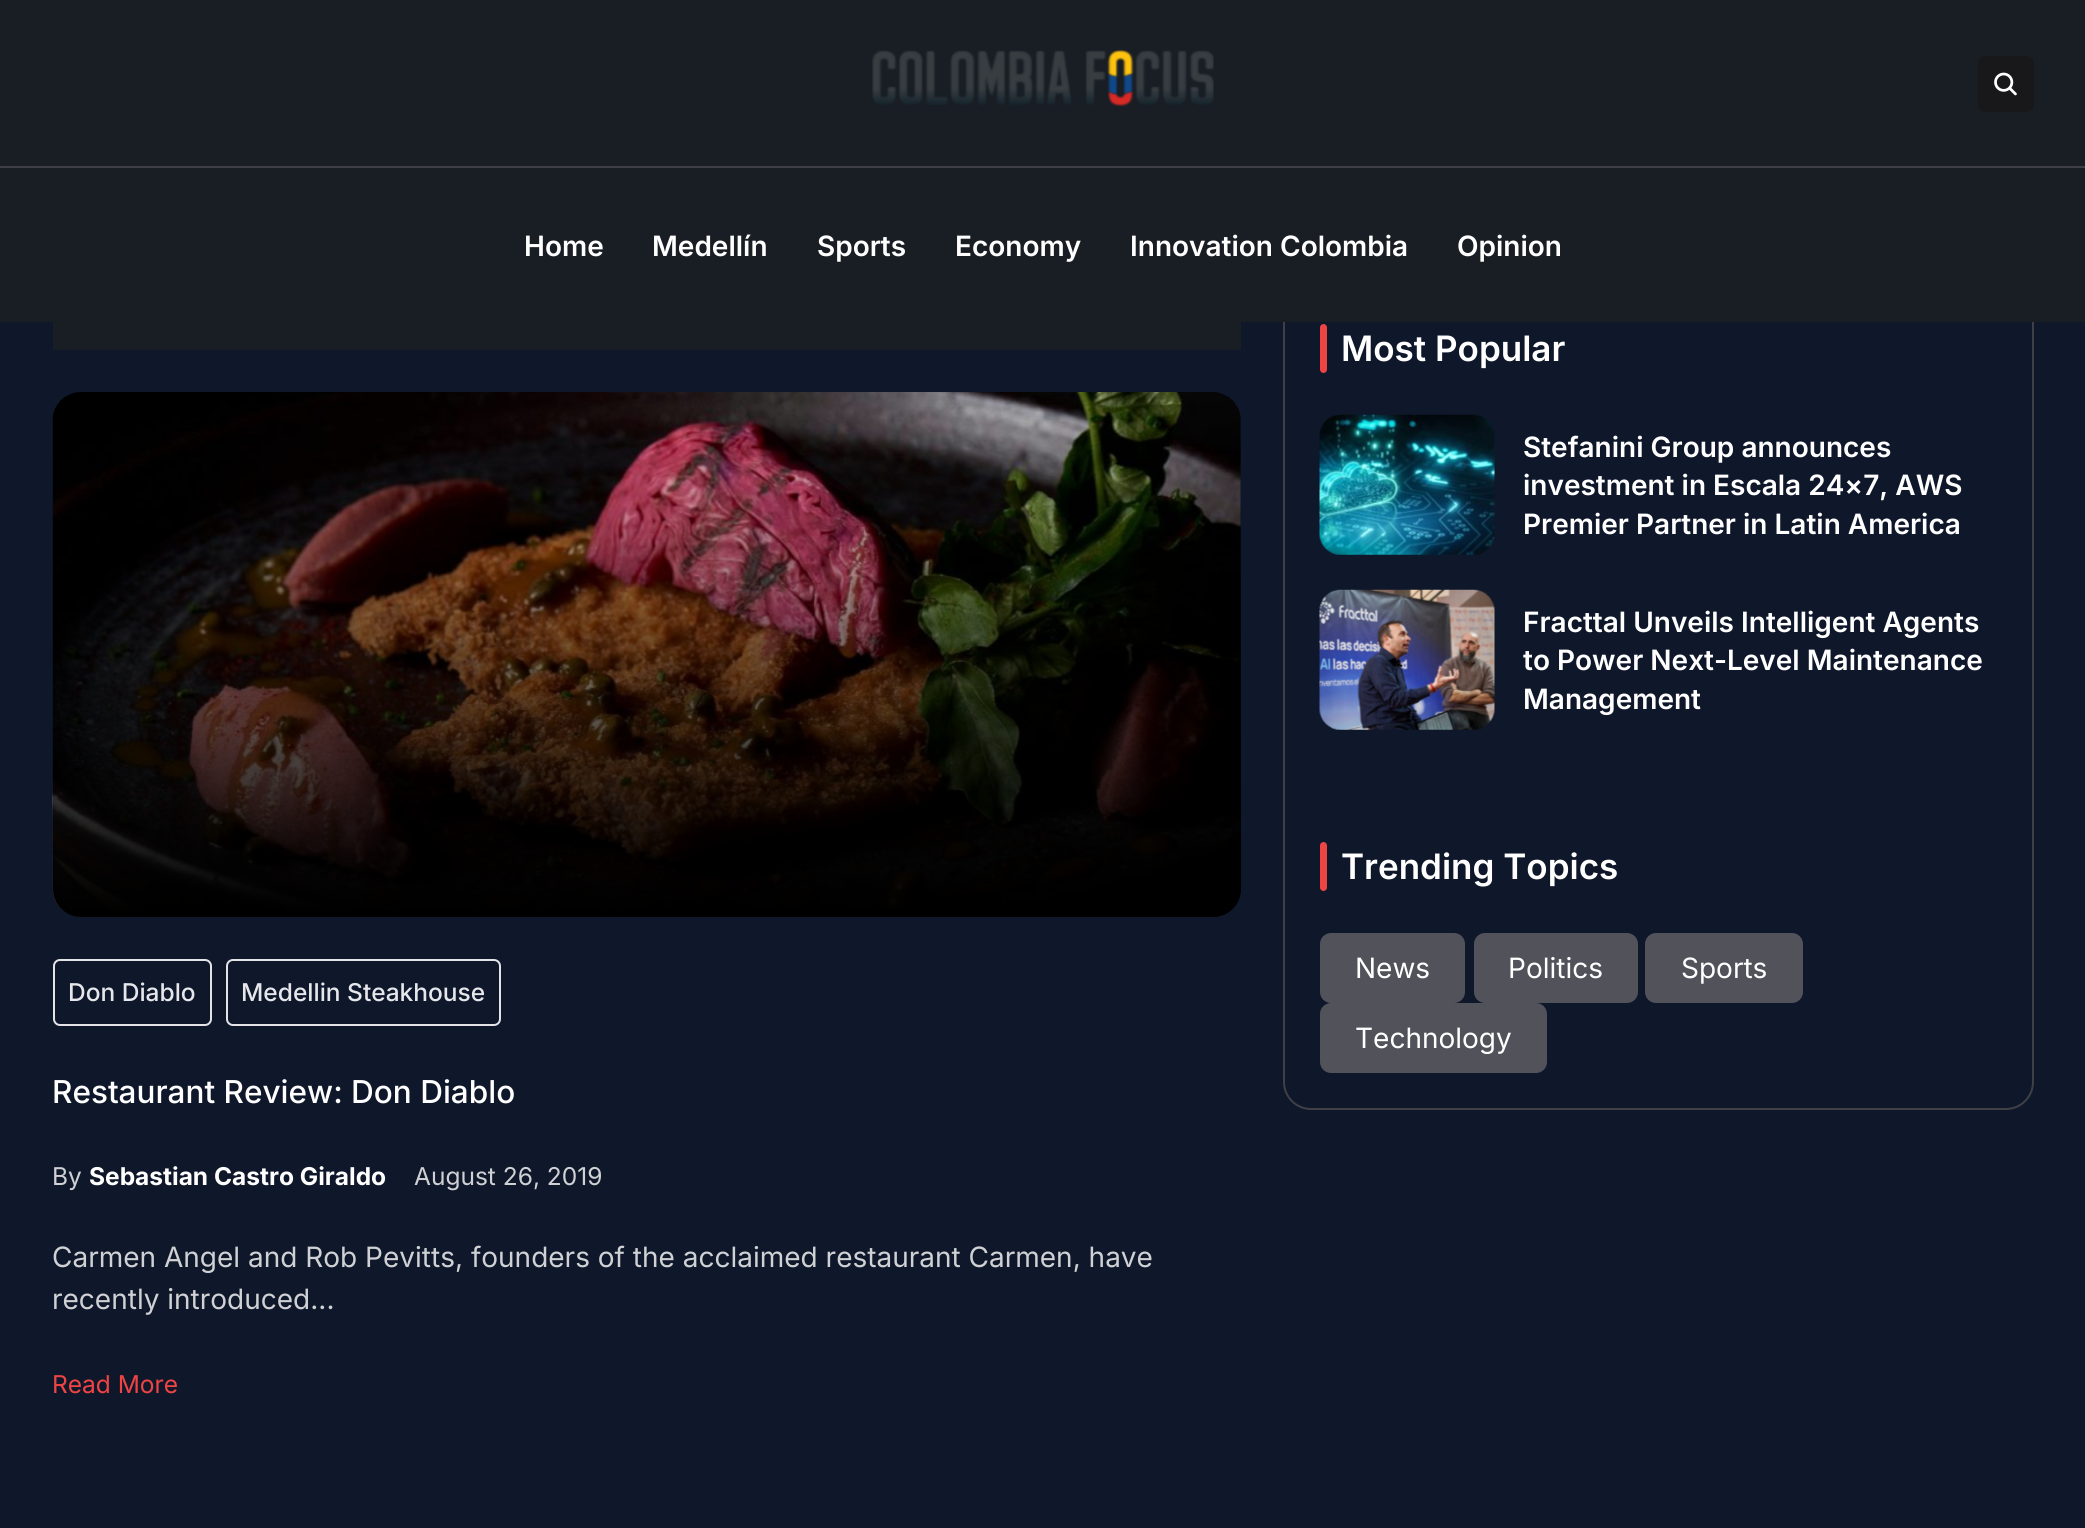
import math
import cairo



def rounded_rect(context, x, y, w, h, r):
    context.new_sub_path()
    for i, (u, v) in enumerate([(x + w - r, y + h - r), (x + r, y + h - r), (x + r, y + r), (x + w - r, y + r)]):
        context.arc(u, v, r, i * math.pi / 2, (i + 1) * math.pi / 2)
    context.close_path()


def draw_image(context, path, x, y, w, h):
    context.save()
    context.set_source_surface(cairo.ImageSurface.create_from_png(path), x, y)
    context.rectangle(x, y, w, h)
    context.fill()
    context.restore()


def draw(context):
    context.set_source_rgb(15 / 255, 23 / 255, 42 / 255)
    context.paint()
    rounded_rect(context, 1284, 288, 749, 821, 27)
    context.set_source_rgb(63 / 255, 63 / 255, 70 / 255)
    context.stroke()
    context.set_source_rgb(25 / 255, 30 / 255, 37 / 255)
    context.rectangle(0, 0, 2085, 322)
    context.fill()
    context.set_source_rgb(63 / 255, 63 / 255, 70 / 255)
    context.rectangle(0, 166, 2085, 2)
    context.fill()
    draw_image(context, "images/1.png", 872, 49, 342, 58)
    context.set_source_rgb(24 / 255, 24 / 255, 27 / 255)
    rounded_rect(context, 1978, 56, 56, 56, 7)
    context.fill()
    draw_image(context, "images/2.png", 1994, 72, 23, 24)
    context.set_source_rgb(239 / 255, 68 / 255, 68 / 255)
    rounded_rect(context, 1320, 324, 7, 49, 3.5)
    context.fill()
    draw_image(context, "images/3.png", 1319, 414, 176, 141)
    draw_image(context, "images/4.png", 1319, 589, 176, 141)
    rounded_rect(context, 1320, 842, 7, 49, 3.5)
    context.fill()
    context.set_source_rgb(82 / 255, 82 / 255, 91 / 255)
    rounded_rect(context, 1320, 933, 145, 70, 11)
    context.fill()
    rounded_rect(context, 1474, 933, 164, 70, 11)
    context.fill()
    rounded_rect(context, 1645, 933, 158, 70, 11)
    context.fill()
    rounded_rect(context, 1320, 1003, 227, 70, 11)
    context.fill()
    context.set_source_rgb(25 / 255, 30 / 255, 37 / 255)
    context.rectangle(53, 322, 1188, 28)
    context.fill()
    draw_image(context, "images/5.png", 52, 392, 1189, 525)
    gradient = cairo.LinearGradient(647, 917, 647, 392)
    gradient.add_color_stop_rgba(0, 0, 0, 0, 1)
    gradient.add_color_stop_rgba(1, 0, 0, 0, 0)
    context.set_source(gradient)
    rounded_rect(context, 53, 392, 1188, 525, 28)
    context.fill()
    rounded_rect(context, 54, 960, 157, 65, 6)
    context.set_source_rgb(228 / 255, 228 / 255, 231 / 255)
    context.stroke()
    rounded_rect(context, 227, 960, 273, 65, 6)
    context.stroke()
    context.select_font_face("Inter SemiBold")
    context.set_font_size(28)
    context.set_source_rgb(1, 1, 1)
    context.move_to(524, 256)
    context.show_text("Home")
    context.move_to(652, 256)
    context.show_text("Medellín")
    context.move_to(817, 256)
    context.show_text("Sports")
    context.move_to(955, 256)
    context.show_text("Economy")
    context.move_to(1130, 256)
    context.show_text("Innovation Colombia")
    context.move_to(1457, 256)
    context.show_text("Opinion")
    context.set_font_size(35)
    context.move_to(1341, 361)
    context.show_text("Most Popular")
    context.set_font_size(28)
    context.move_to(1523, 457)
    context.show_text("Stefanini Group announces")
    context.move_to(1523, 495)
    context.show_text("investment in Escala 24×7, AWS")
    context.move_to(1523, 534)
    context.show_text("Premier Partner in Latin America")
    context.move_to(1523, 632)
    context.show_text("Fracttal Unveils Intelligent Agents")
    context.move_to(1523, 670)
    context.show_text("to Power Next-Level Maintenance")
    context.move_to(1523, 709)
    context.show_text("Management")
    context.set_font_size(35)
    context.move_to(1341, 879)
    context.show_text("Trending Topics")
    context.select_font_face("Inter")
    context.set_font_size(28)
    context.move_to(1355, 978)
    context.show_text("News")
    context.move_to(1508, 978)
    context.show_text("Politics")
    context.move_to(1681, 978)
    context.show_text("Sports")
    context.move_to(1355, 1048)
    context.show_text("Technology")
    context.select_font_face("Inter Medium")
    context.set_font_size(24.5)
    context.set_source_rgb(229 / 255, 231 / 255, 235 / 255)
    context.move_to(68, 1001)
    context.show_text("Don Diablo")
    context.move_to(241, 1001)
    context.show_text("Medellin Steakhouse")
    context.set_font_size(31.5)
    context.set_source_rgb(1, 1, 1)
    context.move_to(52, 1103)
    context.show_text("Restaurant Review: Don Diablo")
    context.select_font_face("Inter")
    context.set_font_size(24.5)
    context.set_source_rgb(207 / 255, 209 / 255, 212 / 255)
    context.move_to(52, 1185)
    context.show_text("By")
    context.select_font_face("Inter", cairo.FontSlant.NORMAL, cairo.FontWeight.BOLD)
    context.set_source_rgb(1, 1, 1)
    context.move_to(89, 1185)
    context.show_text("Sebastian Castro Giraldo")
    context.select_font_face("Inter")
    context.set_source_rgb(207 / 255, 209 / 255, 212 / 255)
    context.move_to(414, 1185)
    context.show_text("August 26, 2019")
    context.set_font_size(28)
    context.move_to(52, 1267)
    context.show_text("Carmen Angel and Rob Pevitts, founders of the acclaimed restaurant Carmen, have")
    context.move_to(52, 1309)
    context.show_text("recently introduced...")
    context.set_font_size(24.5)
    context.set_source_rgb(239 / 255, 68 / 255, 68 / 255)
    context.move_to(52, 1393)
    context.show_text("Read More")


surface = cairo.ImageSurface(cairo.Format.RGB24, 2085, 1528)
context = cairo.Context(surface)
options = cairo.FontOptions()
options.set_hint_metrics(cairo.HintMetrics.OFF)
options.set_hint_style(cairo.HintStyle.NONE)
context.set_font_options(options)
context.set_miter_limit(4)
draw(context)
surface.write_to_png("out.png")
